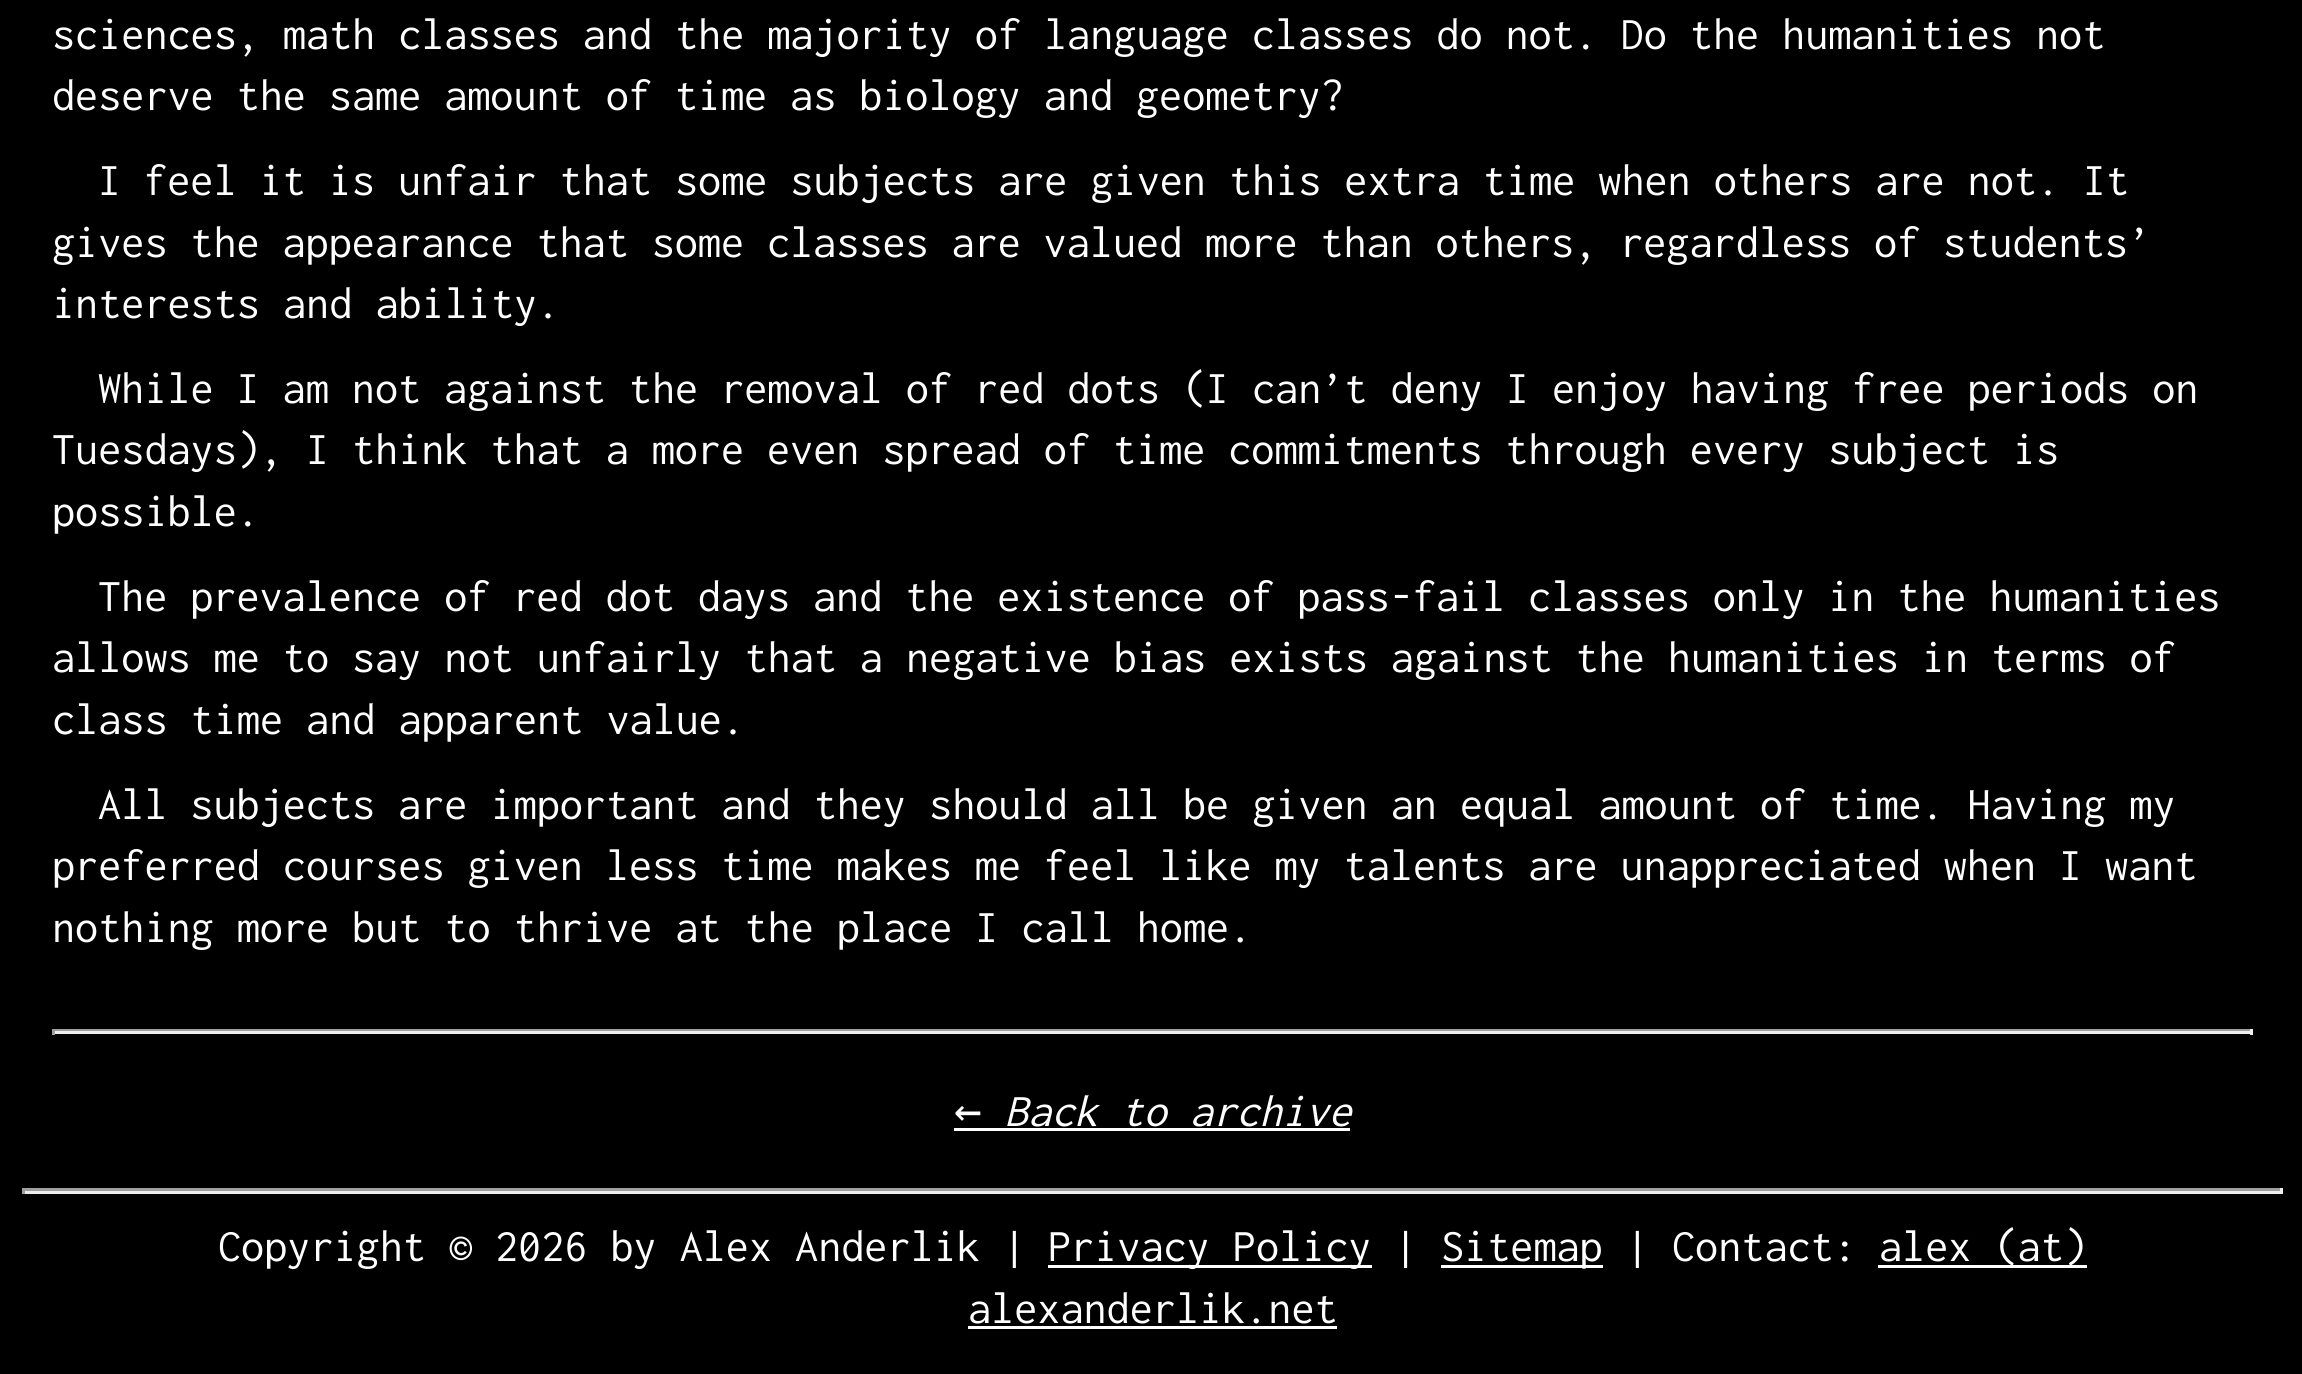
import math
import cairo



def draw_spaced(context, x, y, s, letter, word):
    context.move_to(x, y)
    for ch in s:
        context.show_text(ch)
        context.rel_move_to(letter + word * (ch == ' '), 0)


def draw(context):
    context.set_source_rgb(0, 0, 0)
    context.paint()
    context.set_source_rgb(159 / 255, 159 / 255, 159 / 255)
    context.rectangle(52, 1029, 2200, 2)
    context.fill()
    context.set_source_rgb(238 / 255, 238 / 255, 238 / 255)
    context.rectangle(2250, 1029, 3, 6)
    context.fill()
    context.rectangle(52, 1031, 2200, 3)
    context.fill()
    context.set_source_rgb(159 / 255, 159 / 255, 159 / 255)
    context.rectangle(52, 1029, 3, 6)
    context.fill()
    context.set_source_rgb(1, 1, 1)
    context.rectangle(954, 1128, 396, 3)
    context.fill()
    context.set_source_rgb(159 / 255, 159 / 255, 159 / 255)
    context.rectangle(22, 1188, 2261, 3)
    context.fill()
    context.set_source_rgb(238 / 255, 238 / 255, 238 / 255)
    context.rectangle(2280, 1188, 3, 6)
    context.fill()
    context.rectangle(22, 1191, 2261, 3)
    context.fill()
    context.set_source_rgb(159 / 255, 159 / 255, 159 / 255)
    context.rectangle(22, 1188, 3, 6)
    context.fill()
    context.set_source_rgb(1, 1, 1)
    context.rectangle(1048, 1265, 324, 3)
    context.fill()
    context.rectangle(1441, 1265, 162, 3)
    context.fill()
    context.rectangle(1878, 1265, 209, 3)
    context.fill()
    context.rectangle(968, 1326, 369, 3)
    context.fill()
    context.select_font_face("Inconsolata")
    context.set_font_size(46.2)
    draw_spaced(context, 52, 49, "sciences, math classes and the majority of language classes do not. Do the humanities not", 0, -0.2)
    draw_spaced(context, 52, 110, "deserve the same amount of time as biology and geometry?", 0, -0.2)
    draw_spaced(context, 98, 195, "I feel it is unfair that some subjects are given this extra time when others are not. It", 0, -0.1)
    draw_spaced(context, 52, 257, "gives the appearance that some classes are valued more than others, regardless of students’", 0, -0.25)
    context.move_to(52, 318)
    context.show_text("interests and ability.")
    draw_spaced(context, 98, 403, "While I am not against the removal of red dots (I can’t deny I enjoy having free periods on", 0, -0.1)
    draw_spaced(context, 52, 464, "Tuesdays), I think that a more even spread of time commitments through every subject is", 0, -0.2)
    context.move_to(52, 526)
    context.show_text("possible.")
    draw_spaced(context, 98, 611, "The prevalence of red dot days and the existence of pass-fail classes only in the humanities", 0, -0.2)
    draw_spaced(context, 52, 672, "allows me to say not unfairly that a negative bias exists against the humanities in terms of", 0, -0.1)
    context.move_to(52, 734)
    context.show_text("class time and apparent value.")
    draw_spaced(context, 98, 819, "All subjects are important and they should all be given an equal amount of time. Having my", 0, -0.1)
    draw_spaced(context, 52, 880, "preferred courses given less time makes me feel like my talents are unappreciated when I want", 0, -0.2)
    draw_spaced(context, 52, 942, "nothing more but to thrive at the place I call home.", 0, -0.1)
    context.select_font_face("DejaVu Sans Mono", cairo.FontSlant.ITALIC)
    context.move_to(954, 1126)
    context.show_text("←")
    context.select_font_face("Inconsolata", cairo.FontSlant.ITALIC)
    context.move_to(1005, 1126)
    context.show_text("Back to archive")
    context.select_font_face("Inconsolata")
    draw_spaced(context, 218, 1261, "Copyright © 2026 by Alex Anderlik |", 0, -0.1)
    context.move_to(1048, 1261)
    context.show_text("Privacy Policy")
    context.move_to(1394, 1261)
    context.show_text("|")
    context.move_to(1441, 1261)
    context.show_text("Sitemap | Contact:")
    context.move_to(1879, 1261)
    context.show_text("alex (at)")
    context.move_to(968, 1323)
    context.show_text("alexanderlik.net")


surface = cairo.ImageSurface(cairo.Format.RGB24, 2302, 1374)
context = cairo.Context(surface)
options = cairo.FontOptions()
options.set_hint_metrics(cairo.HintMetrics.OFF)
options.set_hint_style(cairo.HintStyle.NONE)
context.set_font_options(options)
context.set_miter_limit(4)
draw(context)
surface.write_to_png("out.png")
